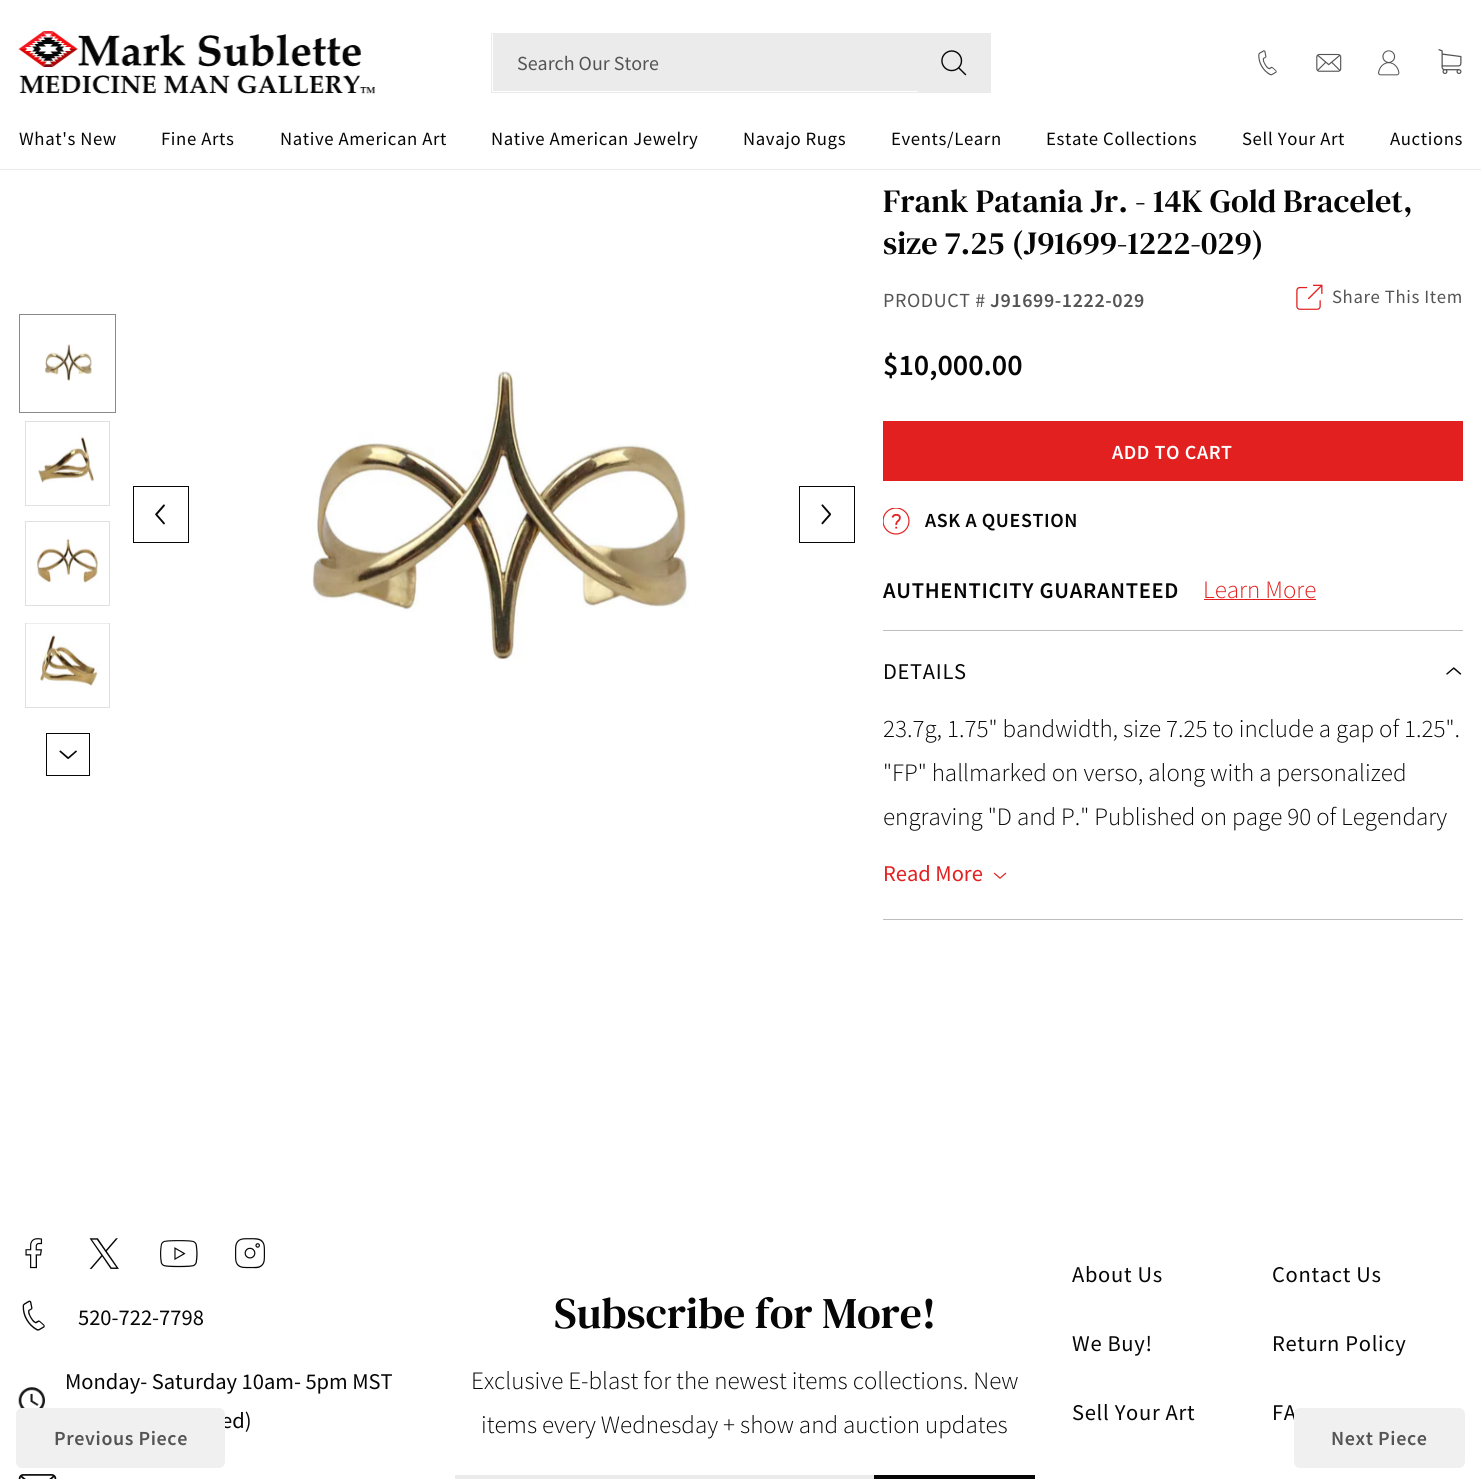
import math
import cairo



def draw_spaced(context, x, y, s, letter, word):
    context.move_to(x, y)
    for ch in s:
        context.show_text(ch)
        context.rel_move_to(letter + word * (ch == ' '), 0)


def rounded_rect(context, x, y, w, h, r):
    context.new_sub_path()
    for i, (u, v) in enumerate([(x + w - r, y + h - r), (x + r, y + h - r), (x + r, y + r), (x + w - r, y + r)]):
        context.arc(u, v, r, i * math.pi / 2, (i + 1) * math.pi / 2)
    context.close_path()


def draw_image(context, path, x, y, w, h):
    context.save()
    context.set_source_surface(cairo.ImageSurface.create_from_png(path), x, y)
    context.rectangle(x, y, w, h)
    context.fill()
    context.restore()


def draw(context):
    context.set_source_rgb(1, 1, 1)
    context.paint()
    context.set_source_rgb(235 / 255, 235 / 255, 235 / 255)
    context.rectangle(0, 169, 1481, 1)
    context.fill()
    draw_image(context, "images/1.png", 18, 31, 357, 63)
    context.rectangle(493, 34, 425, 57)
    context.fill()
    context.rectangle(491.5, 33.5, 427, 59)
    context.set_line_width(1)
    context.stroke()
    context.rectangle(919, 33, 72, 60)
    context.fill()
    draw_image(context, "images/2.png", 941, 50, 26, 26)
    draw_image(context, "images/3.png", 1258, 50, 19, 26)
    draw_image(context, "images/4.png", 1316, 53, 26, 19)
    draw_image(context, "images/5.png", 1378, 50, 22, 26)
    draw_image(context, "images/6.png", 1438, 49, 24, 25)
    context.rectangle(19.5, 314.5, 96, 98)
    context.set_source_rgb(137 / 255, 137 / 255, 137 / 255)
    context.stroke()
    draw_image(context, "images/7.png", 45, 343, 47, 38)
    context.rectangle(25.5, 421.5, 84, 84)
    context.set_source_rgb(224 / 255, 224 / 255, 224 / 255)
    context.stroke()
    draw_image(context, "images/8.png", 38, 436, 57, 47)
    context.rectangle(25.5, 521.5, 84, 84)
    context.stroke()
    draw_image(context, "images/9.png", 35, 538, 64, 45)
    context.rectangle(25.5, 623.5, 84, 84)
    context.stroke()
    draw_image(context, "images/10.png", 26, 623, 83, 63)
    context.rectangle(46.5, 733.5, 43, 42)
    context.set_source_rgb(6 / 255, 6 / 255, 6 / 255)
    context.stroke()
    draw_image(context, "images/11.png", 59, 750, 18, 9)
    context.rectangle(133.5, 486.5, 55, 56)
    context.stroke()
    draw_image(context, "images/12.png", 155, 504, 10, 21)
    draw_image(context, "images/13.png", 312, 371, 377, 290)
    context.rectangle(799.5, 486.5, 55, 56)
    context.stroke()
    draw_image(context, "images/14.png", 821, 504, 10, 21)
    draw_image(context, "images/15.png", 1296, 284, 27, 26)
    context.set_source_rgb(227 / 255, 32 / 255, 32 / 255)
    context.rectangle(883, 421, 580, 60)
    context.fill()
    draw_image(context, "images/16.png", 883, 508, 27, 27)
    context.rectangle(1204, 599, 112, 1)
    context.fill()
    context.set_source_rgb(189 / 255, 189 / 255, 189 / 255)
    context.rectangle(883, 630, 580, 1)
    context.fill()
    context.rectangle(883, 919, 580, 1)
    context.fill()
    draw_image(context, "images/17.png", 1446, 667, 16, 8)
    draw_image(context, "images/18.png", 993, 872, 14, 7)
    draw_image(context, "images/19.png", 25, 1238, 18, 31)
    draw_image(context, "images/20.png", 89, 1238, 30, 31)
    draw_image(context, "images/21.png", 160, 1240, 38, 28)
    draw_image(context, "images/22.png", 235, 1238, 30, 31)
    draw_image(context, "images/23.png", 22, 1300, 23, 31)
    draw_image(context, "images/24.png", 18, 1387, 27, 22)
    draw_image(context, "images/25.png", 18, 1474, 39, 5)
    context.set_source_rgb(235 / 255, 235 / 255, 235 / 255)
    context.rectangle(455.5, 1475.5, 419, 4)
    context.fill_preserve()
    context.stroke()
    context.set_source_rgb(6 / 255, 6 / 255, 6 / 255)
    context.rectangle(874, 1475, 161, 4)
    context.fill()
    context.select_font_face("Source Sans Pro")
    context.set_font_size(20)
    context.set_source_rgb(84 / 255, 84 / 255, 84 / 255)
    context.move_to(517, 70)
    context.show_text("Search Our Store")
    context.set_font_size(18.75)
    context.set_source_rgb(6 / 255, 6 / 255, 6 / 255)
    draw_spaced(context, 19, 145, "What's New", 0.6, 0)
    draw_spaced(context, 161, 145, "Fine Arts", 0.6, 0)
    draw_spaced(context, 280, 145, "Native American Art", 0.6, 0)
    draw_spaced(context, 491, 145, "Native American Jewelry", 0.6, 0)
    draw_spaced(context, 743, 145, "Navajo Rugs", 0.6, 0)
    draw_spaced(context, 891, 145, "Events/Learn", 0.6, 0)
    draw_spaced(context, 1046, 145, "Estate Collections", 0.6, 0)
    draw_spaced(context, 1242, 145, "Sell Your Art", 0.6, 0)
    draw_spaced(context, 1390, 145, "Auctions", 0.6, 0)
    context.select_font_face("DM Serif Text")
    context.set_font_size(32.5)
    context.move_to(883, 212)
    context.show_text("Frank Patania Jr. - 14K Gold Bracelet,")
    context.move_to(883, 254)
    context.show_text("size 7.25 (J91699-1222-029)")
    context.select_font_face("Source Sans Pro")
    context.set_font_size(20)
    context.set_source_rgb(84 / 255, 84 / 255, 84 / 255)
    draw_spaced(context, 883, 307, "PRODUCT #", 0.6, 0)
    context.select_font_face("Source Sans Pro SemiBold")
    draw_spaced(context, 990, 307, "J91699-1222-029", 0.6, 0)
    context.select_font_face("Source Sans Pro")
    context.set_font_size(18.75)
    draw_spaced(context, 1332, 303, "Share This Item", 0.6, 0)
    context.select_font_face("Source Sans Pro SemiBold")
    context.set_font_size(30)
    context.set_source_rgb(6 / 255, 6 / 255, 6 / 255)
    context.move_to(883, 375)
    context.show_text("$10,000.00")
    context.set_font_size(20)
    context.set_source_rgb(1, 1, 1)
    draw_spaced(context, 1112, 459, "ADD TO CART", 0.6, 0)
    context.set_source_rgb(6 / 255, 6 / 255, 6 / 255)
    draw_spaced(context, 925, 527, "ASK A QUESTION", 0.6, 0)
    context.set_font_size(22.5)
    draw_spaced(context, 883, 598, "AUTHENTICITY GUARANTEED", 0.7, 0)
    context.select_font_face("Source Sans Pro Light")
    context.set_font_size(25)
    context.set_source_rgb(227 / 255, 32 / 255, 32 / 255)
    context.move_to(1203, 598)
    context.show_text("Learn More")
    context.select_font_face("Source Sans Pro")
    context.set_font_size(22.5)
    context.set_source_rgb(6 / 255, 6 / 255, 6 / 255)
    draw_spaced(context, 883, 679, "DETAILS", 0.7, 0)
    context.select_font_face("Source Sans Pro Light")
    context.set_font_size(25)
    context.move_to(883, 737)
    context.show_text("23.7g, 1.75\" bandwidth, size 7.25 to include a gap of 1.25\".")
    context.move_to(883, 781)
    context.show_text("\"FP\" hallmarked on verso, along with a personalized")
    context.move_to(883, 825)
    context.show_text("engraving \"D and P.\" Published on page 90 of Legendary")
    context.select_font_face("Source Sans Pro")
    context.set_font_size(22.5)
    context.set_source_rgb(227 / 255, 32 / 255, 32 / 255)
    context.move_to(883, 881)
    context.show_text("Read More")
    context.set_source_rgb(6 / 255, 6 / 255, 6 / 255)
    context.move_to(78, 1325)
    context.show_text("520-722-7798")
    context.move_to(65, 1389)
    context.show_text("Monday- Saturday 10am- 5pm MST")
    context.move_to(221, 1428)
    context.show_text("ed)")
    context.set_source_rgb(240 / 255, 240 / 255, 240 / 255)
    rounded_rect(context, 16, 1408, 209, 60, 6)
    context.fill()
    context.select_font_face("Source Sans Pro SemiBold")
    context.set_font_size(20)
    context.set_source_rgb(84 / 255, 84 / 255, 84 / 255)
    draw_spaced(context, 54, 1445, "Previous Piece", 0.6, 0)
    context.select_font_face("DM Serif Text")
    context.set_font_size(43.75)
    context.set_source_rgb(6 / 255, 6 / 255, 6 / 255)
    context.move_to(554, 1328)
    context.show_text("Subscribe for More!")
    context.select_font_face("Source Sans Pro Light")
    context.set_font_size(25)
    context.move_to(471, 1389)
    context.show_text("Exclusive E-blast for the newest items collections. New")
    context.move_to(481, 1433)
    context.show_text("items every Wednesday + show and auction updates")
    context.select_font_face("Source Sans Pro")
    context.set_font_size(22.5)
    draw_spaced(context, 1072, 1282, "About Us", 0.7, 0)
    draw_spaced(context, 1272, 1282, "Contact Us", 0.7, 0)
    draw_spaced(context, 1072, 1351, "We Buy!", 0.7, 0)
    draw_spaced(context, 1272, 1351, "Return Policy", 0.7, 0)
    draw_spaced(context, 1072, 1420, "Sell Your Art", 0.7, 0)
    draw_spaced(context, 1272, 1420, "FA", 0.7, 0)
    context.set_source_rgb(240 / 255, 240 / 255, 240 / 255)
    rounded_rect(context, 1294, 1408, 171, 60, 6)
    context.fill()
    context.select_font_face("Source Sans Pro SemiBold")
    context.set_font_size(20)
    context.set_source_rgb(84 / 255, 84 / 255, 84 / 255)
    draw_spaced(context, 1331, 1445, "Next Piece", 0.6, 0)


surface = cairo.ImageSurface(cairo.Format.RGB24, 1481, 1479)
context = cairo.Context(surface)
options = cairo.FontOptions()
options.set_hint_metrics(cairo.HintMetrics.OFF)
options.set_hint_style(cairo.HintStyle.NONE)
context.set_font_options(options)
context.set_miter_limit(4)
draw(context)
surface.write_to_png("out.png")
